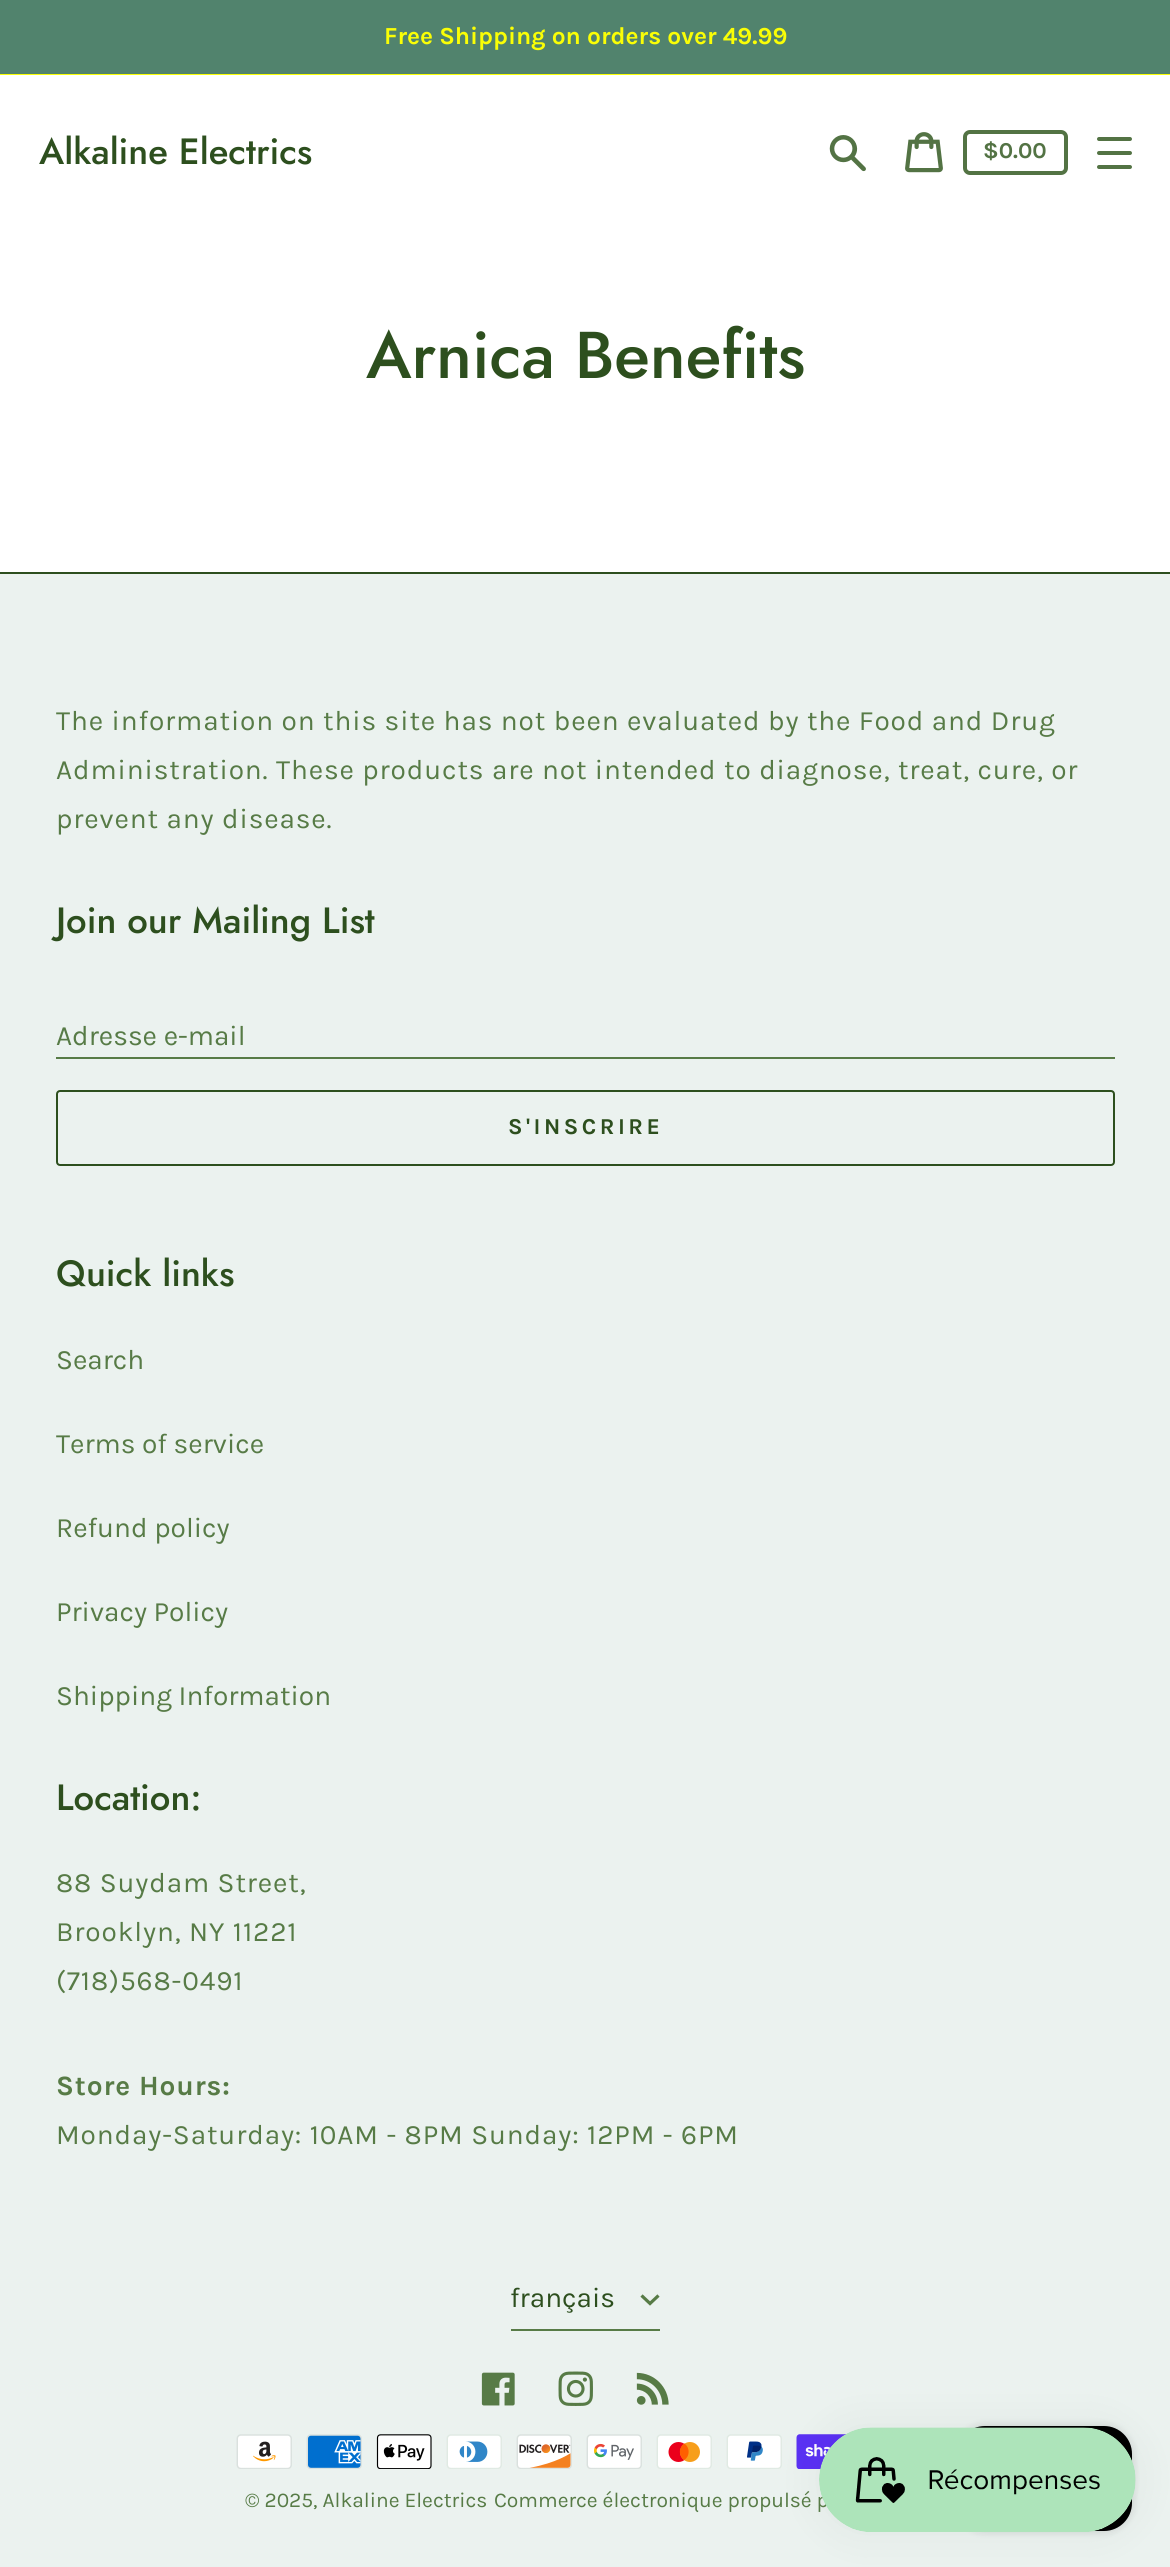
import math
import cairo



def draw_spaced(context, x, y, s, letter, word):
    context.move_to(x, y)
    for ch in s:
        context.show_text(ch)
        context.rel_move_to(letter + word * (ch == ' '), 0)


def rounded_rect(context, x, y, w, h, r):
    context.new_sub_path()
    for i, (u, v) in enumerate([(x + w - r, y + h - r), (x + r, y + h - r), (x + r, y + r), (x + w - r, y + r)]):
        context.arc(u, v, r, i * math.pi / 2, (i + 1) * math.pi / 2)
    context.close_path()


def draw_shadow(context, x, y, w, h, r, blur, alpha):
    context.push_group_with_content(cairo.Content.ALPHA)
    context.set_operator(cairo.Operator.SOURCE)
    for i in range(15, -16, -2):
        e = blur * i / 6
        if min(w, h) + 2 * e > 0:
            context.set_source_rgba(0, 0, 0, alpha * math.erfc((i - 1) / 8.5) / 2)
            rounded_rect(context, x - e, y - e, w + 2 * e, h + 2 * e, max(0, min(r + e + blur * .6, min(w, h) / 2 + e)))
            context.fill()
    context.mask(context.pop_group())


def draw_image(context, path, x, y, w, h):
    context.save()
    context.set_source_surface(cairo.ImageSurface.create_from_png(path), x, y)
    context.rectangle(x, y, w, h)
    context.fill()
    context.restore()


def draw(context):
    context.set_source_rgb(1, 1, 1)
    context.paint()
    context.set_source_rgb(81 / 255, 131 / 255, 109 / 255)
    context.rectangle(0, 0, 1170, 74)
    context.fill()
    context.set_source_rgb(250 / 255, 254 / 255, 6 / 255)
    context.rectangle(0, 74, 1170, 1)
    context.fill()
    draw_image(context, "images/1.png", 829, 135, 37, 37)
    draw_image(context, "images/2.png", 905, 132, 38, 41)
    rounded_rect(context, 965, 132, 101, 41, 5)
    context.set_source_rgb(83 / 255, 115 / 255, 68 / 255)
    context.set_line_width(4)
    context.stroke()
    rounded_rect(context, 1097, 151, 35, 4, 2)
    context.fill()
    rounded_rect(context, 1097, 137, 35, 4, 2)
    context.fill()
    rounded_rect(context, 1097, 165, 35, 4, 2)
    context.fill()
    context.set_source_rgb(235 / 255, 242 / 255, 239 / 255)
    context.rectangle(0, 574, 1170, 1993)
    context.fill()
    context.set_source_rgb(45 / 255, 79 / 255, 30 / 255)
    context.rectangle(0, 572, 1170, 2)
    context.fill()
    context.set_source_rgb(87 / 255, 123 / 255, 70 / 255)
    context.rectangle(56, 1057, 1059, 2)
    context.fill()
    rounded_rect(context, 57, 1091, 1057, 74, 3)
    context.set_source_rgb(45 / 255, 79 / 255, 30 / 255)
    context.set_line_width(2)
    context.stroke()
    context.set_source_rgb(87 / 255, 123 / 255, 70 / 255)
    context.rectangle(511, 2329, 149, 2)
    context.fill()
    context.new_path()
    context.move_to(641.5, 2295.5)
    context.line_to(650, 2303.5)
    context.line_to(658.5, 2295.5)
    context.set_line_width(3.2)
    context.stroke()
    draw_image(context, "images/3.png", 481, 2372, 34, 34)
    draw_image(context, "images/4.png", 558, 2371, 35, 35)
    draw_image(context, "images/5.png", 636, 2372, 33, 33)
    draw_image(context, "images/6.png", 236, 2434, 56, 35)
    draw_image(context, "images/7.png", 306, 2434, 56, 35)
    draw_image(context, "images/8.png", 376, 2434, 56, 35)
    draw_image(context, "images/9.png", 446, 2434, 56, 35)
    draw_image(context, "images/10.png", 516, 2434, 56, 35)
    draw_image(context, "images/11.png", 586, 2434, 56, 35)
    draw_image(context, "images/12.png", 656, 2434, 56, 35)
    draw_image(context, "images/13.png", 726, 2434, 56, 35)
    draw_image(context, "images/14.png", 796, 2434, 50, 35)
    context.set_source_rgb(0, 0, 0)
    draw_shadow(context, 957, 2426, 175, 105, 28, 4.5, 0.15)
    context.set_source_rgb(0, 0, 0)
    rounded_rect(context, 957, 2426, 175, 105, 28)
    context.fill()
    context.set_source_rgb(0, 0, 0)
    draw_shadow(context, 819, 2427, 317, 105, 52.5, 22, 0.05)
    context.select_font_face("Karla", cairo.FontSlant.NORMAL, cairo.FontWeight.BOLD)
    context.set_font_size(24.5)
    context.set_source_rgb(250 / 255, 254 / 255, 6 / 255)
    context.move_to(384, 44)
    context.show_text("Free Shipping on orders over 49.99")
    context.select_font_face("Jost Medium")
    context.set_font_size(36.5)
    context.set_source_rgb(45 / 255, 79 / 255, 30 / 255)
    context.move_to(39, 164)
    context.show_text("Alkaline Electrics")
    context.select_font_face("Karla", cairo.FontSlant.NORMAL, cairo.FontWeight.BOLD)
    context.set_font_size(22.75)
    context.set_source_rgb(83 / 255, 115 / 255, 68 / 255)
    context.move_to(983, 158)
    context.show_text("$0.00")
    context.select_font_face("Jost Medium")
    context.set_font_size(66)
    context.set_source_rgb(45 / 255, 79 / 255, 30 / 255)
    context.move_to(366, 378)
    context.show_text("Arnica Benefits")
    context.select_font_face("Karla")
    context.set_font_size(28)
    context.set_source_rgb(87 / 255, 123 / 255, 70 / 255)
    draw_spaced(context, 56, 730, "The information on this site has not been evaluated by the Food and Drug", 0.88, 0)
    draw_spaced(context, 56, 779, "Administration. These products are not intended to diagnose, treat, cure, or", 0.88, 0)
    draw_spaced(context, 56, 828, "prevent any disease.", 0.88, 0)
    context.select_font_face("Jost Medium")
    context.set_font_size(36.5)
    context.set_source_rgb(45 / 255, 79 / 255, 30 / 255)
    context.move_to(56, 933)
    context.show_text("Join our Mailing List")
    context.select_font_face("Karla")
    context.set_font_size(28)
    context.set_source_rgb(87 / 255, 123 / 255, 70 / 255)
    context.move_to(56, 1045)
    context.show_text("Adresse e-mail")
    context.select_font_face("Karla", cairo.FontSlant.NORMAL, cairo.FontWeight.BOLD)
    context.set_font_size(22.75)
    context.set_source_rgb(45 / 255, 79 / 255, 30 / 255)
    draw_spaced(context, 508, 1134, "S'INSCRIRE", 3.5, 0)
    context.select_font_face("Jost Medium")
    context.set_font_size(36.5)
    context.move_to(56, 1286)
    context.show_text("Quick links")
    context.select_font_face("Karla")
    context.set_font_size(28)
    context.set_source_rgb(87 / 255, 123 / 255, 70 / 255)
    context.move_to(56, 1369)
    context.show_text("Search")
    context.move_to(56, 1453)
    context.show_text("Terms of service")
    context.move_to(56, 1537)
    context.show_text("Refund policy")
    context.move_to(56, 1621)
    context.show_text("Privacy Policy")
    context.move_to(56, 1705)
    context.show_text("Shipping Information")
    context.select_font_face("Jost Medium")
    context.set_font_size(36.5)
    context.set_source_rgb(45 / 255, 79 / 255, 30 / 255)
    context.move_to(56, 1810)
    context.show_text("Location:")
    context.select_font_face("Karla")
    context.set_font_size(28)
    context.set_source_rgb(87 / 255, 123 / 255, 70 / 255)
    draw_spaced(context, 56, 1892, "88 Suydam Street,", 0.88, 0)
    draw_spaced(context, 56, 1941, "Brooklyn, NY 11221", 0.88, 0)
    draw_spaced(context, 56, 1990, "(718)568-0491", 0.88, 0)
    context.select_font_face("Karla", cairo.FontSlant.NORMAL, cairo.FontWeight.BOLD)
    draw_spaced(context, 56, 2095, "Store Hours:", 0.88, 0)
    context.select_font_face("Karla")
    draw_spaced(context, 56, 2144, "Monday-Saturday: 10AM - 8PM Sunday: 12PM - 6PM", 0.88, 0)
    context.set_source_rgb(45 / 255, 79 / 255, 30 / 255)
    context.move_to(510, 2307)
    context.show_text("français")
    context.set_font_size(21)
    context.set_source_rgb(87 / 255, 123 / 255, 70 / 255)
    context.move_to(245, 2507)
    context.show_text("© 2025, Alkaline Electrics")
    context.move_to(494, 2507)
    context.show_text("Commerce électronique propulsé p")
    draw_image(context, "images/15.png", 819, 2427, 317, 105)


surface = cairo.ImageSurface(cairo.Format.RGB24, 1170, 2567)
context = cairo.Context(surface)
options = cairo.FontOptions()
options.set_hint_metrics(cairo.HintMetrics.OFF)
options.set_hint_style(cairo.HintStyle.NONE)
context.set_font_options(options)
context.set_miter_limit(4)
draw(context)
surface.write_to_png("out.png")
